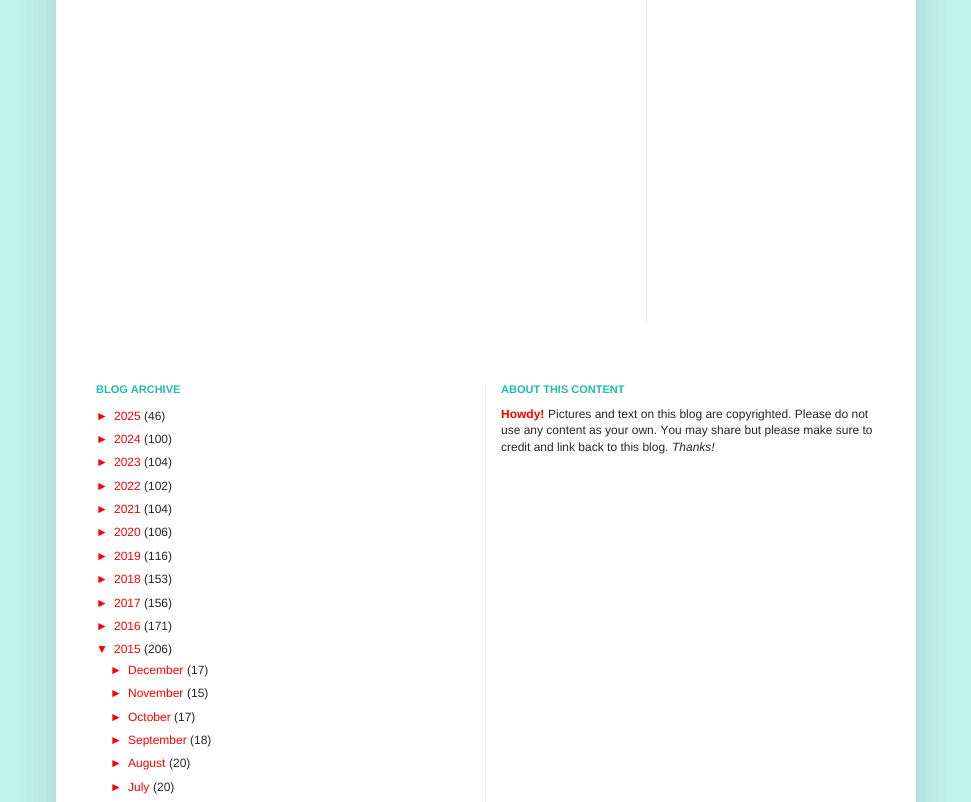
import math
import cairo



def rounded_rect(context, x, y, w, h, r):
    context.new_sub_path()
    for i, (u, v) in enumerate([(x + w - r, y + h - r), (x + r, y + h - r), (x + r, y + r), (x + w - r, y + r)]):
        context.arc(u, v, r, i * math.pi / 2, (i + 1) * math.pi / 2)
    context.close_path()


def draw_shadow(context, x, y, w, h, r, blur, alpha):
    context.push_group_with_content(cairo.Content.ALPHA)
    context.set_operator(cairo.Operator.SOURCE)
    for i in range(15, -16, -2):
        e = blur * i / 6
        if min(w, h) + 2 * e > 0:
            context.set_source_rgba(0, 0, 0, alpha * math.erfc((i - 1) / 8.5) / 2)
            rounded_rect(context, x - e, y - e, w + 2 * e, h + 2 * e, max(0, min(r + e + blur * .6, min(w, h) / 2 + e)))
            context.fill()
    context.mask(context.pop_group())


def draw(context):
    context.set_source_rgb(194 / 255, 242 / 255, 236 / 255)
    context.paint()
    context.set_source_rgb(0, 0, 0)
    draw_shadow(context, 56, -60, 860, 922, 0, 20, 0.15)
    context.set_source_rgb(1, 1, 1)
    context.rectangle(56, 0, 860, 802)
    context.fill()
    context.set_source_rgb(236 / 255, 236 / 255, 236 / 255)
    context.rectangle(646, 0, 1, 323)
    context.fill()
    context.rectangle(485, 383, 1, 419)
    context.fill()
    context.select_font_face("Liberation Sans", cairo.FontSlant.NORMAL, cairo.FontWeight.BOLD)
    context.set_font_size(11)
    context.set_source_rgb(34 / 255, 187 / 255, 176 / 255)
    context.move_to(96, 393)
    context.show_text("BLOG ARCHIVE")
    context.select_font_face("Liberation Sans")
    context.set_font_size(12)
    context.set_source_rgb(1, 0, 0)
    context.move_to(96, 420)
    context.show_text("►")
    context.move_to(114, 420)
    context.show_text("2025")
    context.set_source_rgb(38 / 255, 38 / 255, 38 / 255)
    context.move_to(144, 420)
    context.show_text("(46)")
    context.set_source_rgb(1, 0, 0)
    context.move_to(96, 443)
    context.show_text("►")
    context.move_to(114, 443)
    context.show_text("2024")
    context.set_source_rgb(38 / 255, 38 / 255, 38 / 255)
    context.move_to(144, 443)
    context.show_text("(100)")
    context.set_source_rgb(1, 0, 0)
    context.move_to(96, 466)
    context.show_text("►")
    context.move_to(114, 466)
    context.show_text("2023")
    context.set_source_rgb(38 / 255, 38 / 255, 38 / 255)
    context.move_to(144, 466)
    context.show_text("(104)")
    context.set_source_rgb(1, 0, 0)
    context.move_to(96, 490)
    context.show_text("►")
    context.move_to(114, 490)
    context.show_text("2022")
    context.set_source_rgb(38 / 255, 38 / 255, 38 / 255)
    context.move_to(144, 490)
    context.show_text("(102)")
    context.set_source_rgb(1, 0, 0)
    context.move_to(96, 513)
    context.show_text("►")
    context.move_to(114, 513)
    context.show_text("2021")
    context.set_source_rgb(38 / 255, 38 / 255, 38 / 255)
    context.move_to(144, 513)
    context.show_text("(104)")
    context.set_source_rgb(1, 0, 0)
    context.move_to(96, 536)
    context.show_text("►")
    context.move_to(114, 536)
    context.show_text("2020")
    context.set_source_rgb(38 / 255, 38 / 255, 38 / 255)
    context.move_to(144, 536)
    context.show_text("(106)")
    context.set_source_rgb(1, 0, 0)
    context.move_to(96, 560)
    context.show_text("►")
    context.move_to(114, 560)
    context.show_text("2019")
    context.set_source_rgb(38 / 255, 38 / 255, 38 / 255)
    context.move_to(144, 560)
    context.show_text("(116)")
    context.set_source_rgb(1, 0, 0)
    context.move_to(96, 583)
    context.show_text("►")
    context.move_to(114, 583)
    context.show_text("2018")
    context.set_source_rgb(38 / 255, 38 / 255, 38 / 255)
    context.move_to(144, 583)
    context.show_text("(153)")
    context.set_source_rgb(1, 0, 0)
    context.move_to(96, 607)
    context.show_text("►")
    context.move_to(114, 607)
    context.show_text("2017")
    context.set_source_rgb(38 / 255, 38 / 255, 38 / 255)
    context.move_to(144, 607)
    context.show_text("(156)")
    context.set_source_rgb(1, 0, 0)
    context.move_to(96, 630)
    context.show_text("►")
    context.move_to(114, 630)
    context.show_text("2016")
    context.set_source_rgb(38 / 255, 38 / 255, 38 / 255)
    context.move_to(144, 630)
    context.show_text("(171)")
    context.set_source_rgb(1, 0, 0)
    context.move_to(96, 653)
    context.show_text("▼")
    context.move_to(114, 653)
    context.show_text("2015")
    context.set_source_rgb(38 / 255, 38 / 255, 38 / 255)
    context.move_to(144, 653)
    context.show_text("(206)")
    context.set_source_rgb(1, 0, 0)
    context.move_to(110, 674)
    context.show_text("►")
    context.move_to(128, 674)
    context.show_text("December")
    context.set_source_rgb(38 / 255, 38 / 255, 38 / 255)
    context.move_to(187, 674)
    context.show_text("(17)")
    context.set_source_rgb(1, 0, 0)
    context.move_to(110, 697)
    context.show_text("►")
    context.move_to(128, 697)
    context.show_text("November")
    context.set_source_rgb(38 / 255, 38 / 255, 38 / 255)
    context.move_to(187, 697)
    context.show_text("(15)")
    context.set_source_rgb(1, 0, 0)
    context.move_to(110, 721)
    context.show_text("►")
    context.move_to(128, 721)
    context.show_text("October")
    context.set_source_rgb(38 / 255, 38 / 255, 38 / 255)
    context.move_to(174, 721)
    context.show_text("(17)")
    context.set_source_rgb(1, 0, 0)
    context.move_to(110, 744)
    context.show_text("►")
    context.move_to(128, 744)
    context.show_text("September")
    context.set_source_rgb(38 / 255, 38 / 255, 38 / 255)
    context.move_to(190, 744)
    context.show_text("(18)")
    context.set_source_rgb(1, 0, 0)
    context.move_to(110, 767)
    context.show_text("►")
    context.move_to(128, 767)
    context.show_text("August")
    context.set_source_rgb(38 / 255, 38 / 255, 38 / 255)
    context.move_to(169, 767)
    context.show_text("(20)")
    context.set_source_rgb(1, 0, 0)
    context.move_to(110, 791)
    context.show_text("►")
    context.move_to(128, 791)
    context.show_text("July")
    context.set_source_rgb(38 / 255, 38 / 255, 38 / 255)
    context.move_to(153, 791)
    context.show_text("(20)")
    context.select_font_face("Liberation Sans", cairo.FontSlant.NORMAL, cairo.FontWeight.BOLD)
    context.set_font_size(11)
    context.set_source_rgb(34 / 255, 187 / 255, 176 / 255)
    context.move_to(501, 393)
    context.show_text("ABOUT THIS CONTENT")
    context.set_font_size(12)
    context.set_source_rgb(1, 0, 0)
    context.move_to(501, 418)
    context.show_text("Howdy!")
    context.select_font_face("Liberation Sans")
    context.set_source_rgb(38 / 255, 38 / 255, 38 / 255)
    context.move_to(548, 418)
    context.show_text("Pictures and text on this blog are copyrighted. Please do not")
    context.move_to(501, 434)
    context.show_text("use any content as your own. You may share but please make sure to")
    context.move_to(501, 451)
    context.show_text("credit and link back to this blog.")
    context.select_font_face("Liberation Sans", cairo.FontSlant.ITALIC)
    context.move_to(672, 451)
    context.show_text("Thanks!")


surface = cairo.ImageSurface(cairo.Format.RGB24, 971, 802)
context = cairo.Context(surface)
options = cairo.FontOptions()
options.set_hint_metrics(cairo.HintMetrics.OFF)
options.set_hint_style(cairo.HintStyle.NONE)
context.set_font_options(options)
context.set_miter_limit(4)
draw(context)
surface.write_to_png("out.png")
